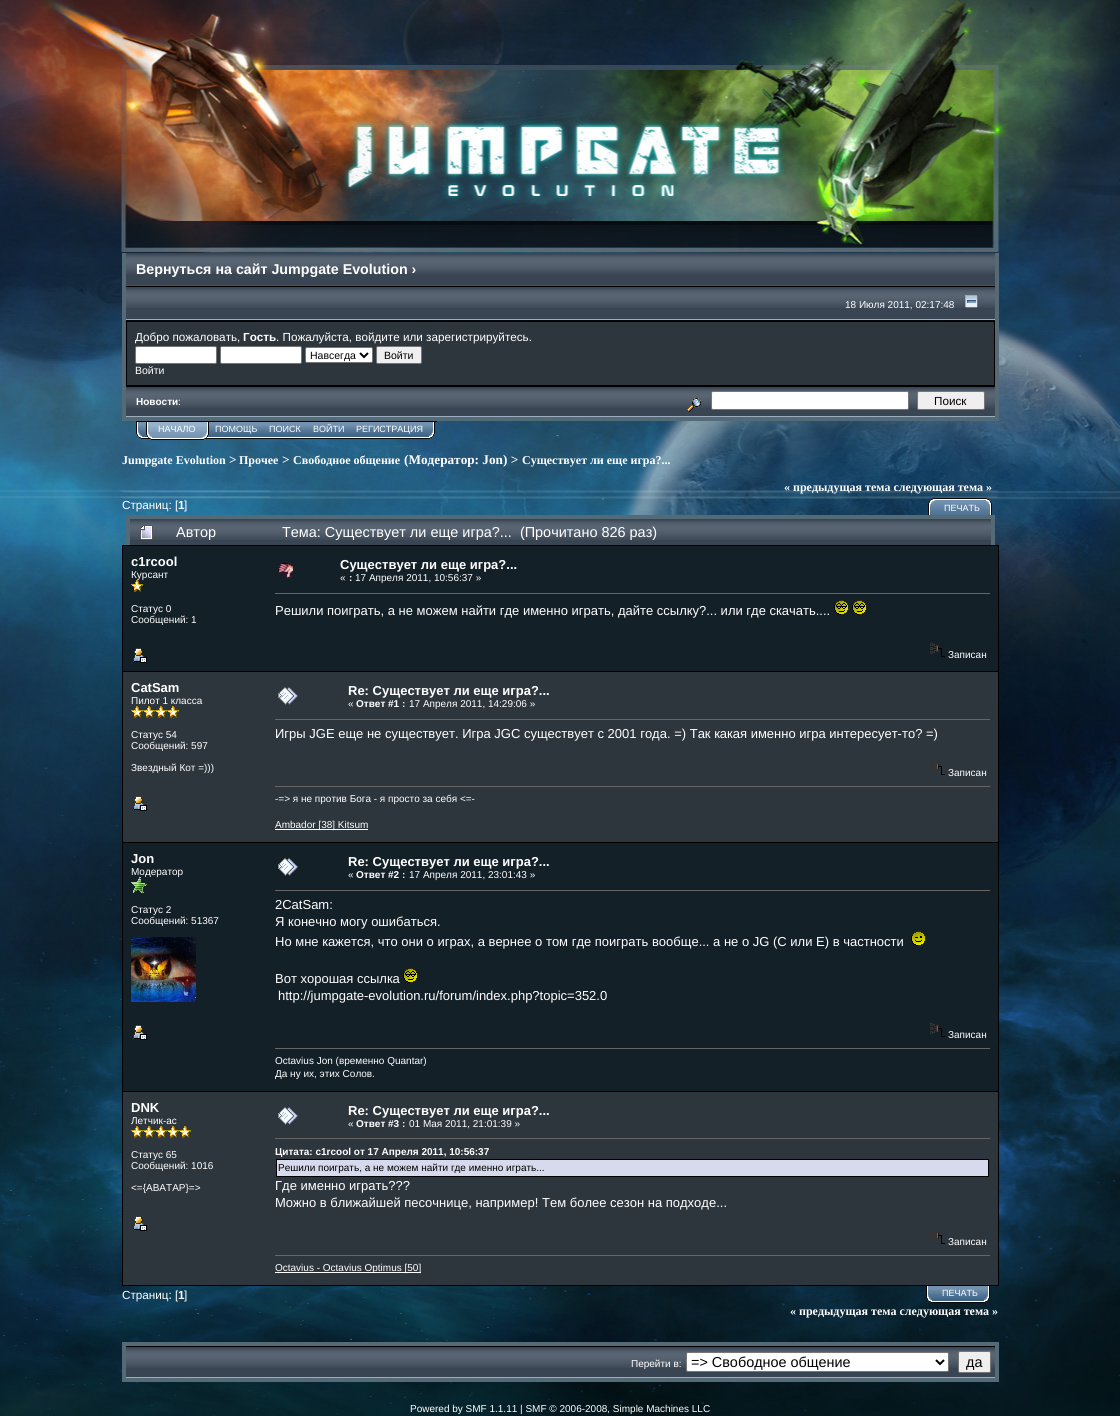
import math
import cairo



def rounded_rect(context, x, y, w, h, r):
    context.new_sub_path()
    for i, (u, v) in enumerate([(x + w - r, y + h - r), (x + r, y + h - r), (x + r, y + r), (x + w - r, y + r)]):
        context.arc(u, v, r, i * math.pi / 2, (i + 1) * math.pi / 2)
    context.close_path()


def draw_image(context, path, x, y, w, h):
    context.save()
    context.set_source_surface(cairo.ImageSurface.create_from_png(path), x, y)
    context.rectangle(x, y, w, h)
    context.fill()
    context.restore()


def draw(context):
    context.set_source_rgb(1, 1, 1)
    context.paint()
    draw_image(context, "images/1.png", 0, 0, 1120, 1416)
    context.set_source_rgb(2 / 255, 7 / 255, 11 / 255)
    context.rectangle(126, 320, 869, 1)
    context.fill()
    context.set_source_rgb(84 / 255, 106 / 255, 119 / 255)
    context.rectangle(995, 253, 4, 168)
    context.fill()
    context.rectangle(122, 417, 877, 4)
    context.fill()
    context.rectangle(122, 253, 4, 168)
    context.fill()
    context.set_source_rgb(57 / 255, 69 / 255, 83 / 255)
    context.rectangle(126, 253, 869, 32)
    context.fill()
    draw_image(context, "images/2.png", 126, 254, 805, 20)
    context.set_source_rgb(55 / 255, 85 / 255, 118 / 255)
    context.rectangle(126, 285, 869, 1)
    context.fill()
    draw_image(context, "images/3.png", 931, 254, 64, 20)
    context.set_source_rgb(57 / 255, 69 / 255, 83 / 255)
    context.rectangle(126, 287, 869, 32)
    context.fill()
    draw_image(context, "images/4.png", 126, 288, 869, 20)
    context.set_source_rgb(0, 0, 0)
    context.rectangle(126, 286, 869, 1)
    context.fill()
    context.set_source_rgb(155 / 255, 174 / 255, 191 / 255)
    context.rectangle(126, 319, 869, 1)
    context.fill()
    draw_image(context, "images/5.png", 965, 295, 13, 13)
    context.set_source_rgb(0, 0, 0)
    context.rectangle(126, 321, 869, 65)
    context.fill()
    context.set_source_rgb(45 / 255, 54 / 255, 61 / 255)
    context.rectangle(127, 322, 867, 63)
    context.fill()
    context.set_source_rgb(1, 1, 1)
    rounded_rect(context, 135.5, 346.5, 81, 17, 1.5)
    context.fill_preserve()
    context.set_source_rgb(118 / 255, 118 / 255, 118 / 255)
    context.set_line_width(1)
    context.stroke()
    context.set_source_rgb(1, 1, 1)
    rounded_rect(context, 220.5, 346.5, 81, 17, 1.5)
    context.fill_preserve()
    context.set_source_rgb(118 / 255, 118 / 255, 118 / 255)
    context.stroke()
    context.set_source_rgb(1, 1, 1)
    rounded_rect(context, 305.5, 347.5, 67, 15, 1.5)
    context.fill_preserve()
    context.set_source_rgb(118 / 255, 118 / 255, 118 / 255)
    context.stroke()
    context.new_path()
    context.move_to(360, 353)
    context.line_to(364, 357)
    context.line_to(368, 353)
    context.set_source_rgb(0, 0, 0)
    context.set_line_width(2)
    context.stroke()
    context.set_source_rgb(239 / 255, 239 / 255, 239 / 255)
    rounded_rect(context, 376.5, 346.5, 45, 17, 1.5)
    context.fill_preserve()
    context.set_source_rgb(118 / 255, 118 / 255, 118 / 255)
    context.set_line_width(1)
    context.stroke()
    context.set_source_rgb(57 / 255, 69 / 255, 83 / 255)
    context.rectangle(126, 387, 869, 29)
    context.fill()
    draw_image(context, "images/6.png", 126, 388, 544, 20)
    context.set_source_rgb(0, 0, 0)
    context.rectangle(126, 386, 869, 1)
    context.fill()
    context.set_source_rgb(155 / 255, 174 / 255, 191 / 255)
    context.rectangle(126, 416, 869, 1)
    context.fill()
    draw_image(context, "images/7.png", 670, 388, 325, 20)
    draw_image(context, "images/8.png", 687, 398, 14, 14)
    context.set_source_rgb(1, 1, 1)
    rounded_rect(context, 711.5, 391.5, 197, 18, 1.5)
    context.fill_preserve()
    context.set_source_rgb(118 / 255, 118 / 255, 118 / 255)
    context.stroke()
    context.set_source_rgb(239 / 255, 239 / 255, 239 / 255)
    rounded_rect(context, 917.5, 391.5, 67, 18, 1.5)
    context.fill_preserve()
    context.set_source_rgb(118 / 255, 118 / 255, 118 / 255)
    context.stroke()
    context.set_source_rgb(0, 0, 0)
    context.rectangle(136, 421, 301, 1)
    context.fill()
    draw_image(context, "images/9.png", 136, 422, 10, 17)
    draw_image(context, "images/10.png", 146, 422, 6, 18)
    draw_image(context, "images/11.png", 152, 422, 49, 18)
    draw_image(context, "images/12.png", 201, 422, 8, 18)
    draw_image(context, "images/13.png", 209, 422, 54, 17)
    draw_image(context, "images/14.png", 263, 422, 44, 17)
    draw_image(context, "images/15.png", 307, 422, 43, 17)
    draw_image(context, "images/16.png", 350, 422, 79, 17)
    draw_image(context, "images/17.png", 429, 422, 6, 17)
    draw_image(context, "images/18.png", 928, 498, 10, 17)
    draw_image(context, "images/19.png", 938, 498, 48, 17)
    draw_image(context, "images/20.png", 986, 498, 6, 17)
    context.set_source_rgb(84 / 255, 106 / 255, 119 / 255)
    context.rectangle(126, 515, 869, 4)
    context.fill()
    context.rectangle(991, 515, 4, 30)
    context.fill()
    context.rectangle(126, 515, 4, 30)
    context.fill()
    context.set_source_rgb(57 / 255, 69 / 255, 83 / 255)
    context.rectangle(130, 519, 861, 26)
    context.fill()
    draw_image(context, "images/21.png", 130, 520, 36, 20)
    draw_image(context, "images/22.png", 140, 525, 13, 15)
    draw_image(context, "images/23.png", 166, 520, 110, 20)
    draw_image(context, "images/24.png", 276, 520, 715, 20)
    context.set_source_rgb(0, 0, 0)
    context.rectangle(122, 545, 877, 741)
    context.fill()
    context.set_source_rgb(19 / 255, 32 / 255, 40 / 255)
    context.rectangle(123, 546, 875, 125)
    context.fill()
    draw_image(context, "images/26.png", 133, 648, 14, 15)
    draw_image(context, "images/27.png", 278, 563, 15, 15)
    context.set_source_rgb(102 / 255, 102 / 255, 102 / 255)
    context.rectangle(275, 593, 715, 1)
    context.fill()
    draw_image(context, "images/28.png", 834, 600, 15, 15)
    draw_image(context, "images/28.png", 852, 600, 15, 15)
    draw_image(context, "images/29.png", 930, 643, 15, 14)
    context.set_source_rgb(45 / 255, 54 / 255, 61 / 255)
    context.rectangle(123, 672, 875, 170)
    context.fill()
    draw_image(context, "images/30.png", 131, 706, 12, 12)
    draw_image(context, "images/30.png", 143, 706, 12, 12)
    draw_image(context, "images/30.png", 155, 706, 12, 12)
    draw_image(context, "images/30.png", 167, 706, 12, 12)
    draw_image(context, "images/31.png", 133, 796, 14, 15)
    draw_image(context, "images/32.png", 278, 687, 20, 18)
    context.set_source_rgb(102 / 255, 102 / 255, 102 / 255)
    context.rectangle(275, 719, 715, 1)
    context.fill()
    draw_image(context, "images/33.png", 930, 761, 15, 14)
    context.rectangle(275, 786, 715, 1)
    context.fill()
    context.set_source_rgb(1, 1, 1)
    context.rectangle(275, 829, 93, 1)
    context.fill()
    context.set_source_rgb(19 / 255, 32 / 255, 40 / 255)
    context.rectangle(123, 843, 875, 248)
    context.fill()
    draw_image(context, "images/35.png", 131, 937, 65, 65)
    draw_image(context, "images/26.png", 133, 1025, 14, 15)
    draw_image(context, "images/36.png", 278, 858, 20, 18)
    context.set_source_rgb(102 / 255, 102 / 255, 102 / 255)
    context.rectangle(275, 890, 715, 1)
    context.fill()
    draw_image(context, "images/37.png", 911, 931, 15, 15)
    draw_image(context, "images/28.png", 403, 968, 15, 15)
    draw_image(context, "images/29.png", 930, 1023, 15, 14)
    context.rectangle(275, 1048, 715, 1)
    context.fill()
    context.set_source_rgb(45 / 255, 54 / 255, 61 / 255)
    context.rectangle(123, 1092, 875, 193)
    context.fill()
    draw_image(context, "images/30.png", 131, 1126, 12, 12)
    draw_image(context, "images/30.png", 143, 1126, 12, 12)
    draw_image(context, "images/30.png", 155, 1126, 12, 12)
    draw_image(context, "images/30.png", 167, 1126, 12, 12)
    draw_image(context, "images/30.png", 179, 1126, 12, 12)
    draw_image(context, "images/31.png", 133, 1216, 14, 15)
    draw_image(context, "images/32.png", 278, 1107, 20, 18)
    context.set_source_rgb(102 / 255, 102 / 255, 102 / 255)
    context.rectangle(275, 1138, 715, 1)
    context.fill()
    context.set_source_rgb(215 / 255, 218 / 255, 236 / 255)
    context.rectangle(276.5, 1159.5, 712, 17)
    context.fill_preserve()
    context.set_source_rgb(0, 0, 0)
    context.stroke()
    draw_image(context, "images/33.png", 930, 1230, 15, 14)
    context.set_source_rgb(102 / 255, 102 / 255, 102 / 255)
    context.rectangle(275, 1255, 715, 1)
    context.fill()
    context.set_source_rgb(1, 1, 1)
    context.rectangle(275, 1272, 146, 1)
    context.fill()
    draw_image(context, "images/38.png", 926, 1286, 10, 17)
    draw_image(context, "images/39.png", 936, 1286, 48, 17)
    draw_image(context, "images/40.png", 984, 1286, 6, 17)
    context.rectangle(124, 1344, 873, 36)
    context.set_source_rgb(84 / 255, 106 / 255, 119 / 255)
    context.set_line_width(4)
    context.stroke()
    context.set_source_rgb(57 / 255, 69 / 255, 83 / 255)
    context.rectangle(126, 1347, 869, 30)
    context.fill()
    draw_image(context, "images/4.png", 126, 1348, 869, 20)
    context.set_source_rgb(0, 0, 0)
    context.rectangle(126, 1346, 869, 1)
    context.fill()
    context.set_source_rgb(155 / 255, 174 / 255, 191 / 255)
    context.rectangle(126, 1377, 869, 1)
    context.fill()
    context.set_source_rgb(1, 1, 1)
    rounded_rect(context, 686.5, 1352.5, 262, 19, 1.5)
    context.fill_preserve()
    context.set_source_rgb(118 / 255, 118 / 255, 118 / 255)
    context.set_line_width(1)
    context.stroke()
    context.new_path()
    context.move_to(936, 1360)
    context.line_to(940, 1364)
    context.line_to(944, 1360)
    context.set_source_rgb(0, 0, 0)
    context.set_line_width(2)
    context.stroke()
    context.set_source_rgb(239 / 255, 239 / 255, 239 / 255)
    rounded_rect(context, 958.5, 1351.5, 32, 21, 1.5)
    context.fill_preserve()
    context.set_source_rgb(118 / 255, 118 / 255, 118 / 255)
    context.set_line_width(1)
    context.stroke()
    context.select_font_face("Liberation Sans", cairo.FontSlant.NORMAL, cairo.FontWeight.BOLD)
    context.set_font_size(14.25)
    context.set_source_rgb(1, 1, 1)
    context.move_to(136, 274)
    context.show_text("Вернуться на сайт Jumpgate Evolution ›")
    context.select_font_face("Liberation Sans")
    context.set_font_size(10)
    context.move_to(845, 308)
    context.show_text("18 Июля 2011, 02:17:48")
    context.set_font_size(11.7)
    context.move_to(135, 341)
    context.show_text("Добро пожаловать,")
    context.select_font_face("Liberation Sans", cairo.FontSlant.NORMAL, cairo.FontWeight.BOLD)
    context.move_to(243, 341)
    context.show_text("Гость")
    context.select_font_face("Liberation Sans")
    context.move_to(276, 341)
    context.show_text(". Пожалуйста, войдите или зарегистрируйтесь.")
    context.set_font_size(10.5)
    context.set_source_rgb(0, 0, 0)
    context.move_to(310, 359)
    context.show_text("Навсегда")
    context.move_to(384, 359)
    context.show_text("Войти")
    context.set_source_rgb(1, 1, 1)
    context.move_to(135, 374)
    context.show_text("Войти")
    context.select_font_face("Liberation Sans", cairo.FontSlant.NORMAL, cairo.FontWeight.BOLD)
    context.set_font_size(10)
    context.move_to(136, 405)
    context.show_text("Новости")
    context.select_font_face("Liberation Sans")
    context.move_to(178, 405)
    context.show_text(":")
    context.set_font_size(11.7)
    context.set_source_rgb(0, 0, 0)
    context.move_to(934, 405)
    context.show_text("Поиск")
    context.set_font_size(9)
    context.set_source_rgb(1, 1, 1)
    context.move_to(158, 432)
    context.show_text("НАЧАЛО")
    context.move_to(215, 432)
    context.show_text("ПОМОЩЬ")
    context.move_to(269, 432)
    context.show_text("ПОИСК")
    context.move_to(313, 432)
    context.show_text("ВОЙТИ")
    context.move_to(356, 432)
    context.show_text("РЕГИСТРАЦИЯ")
    context.select_font_face("Liberation Serif", cairo.FontSlant.NORMAL, cairo.FontWeight.BOLD)
    context.set_font_size(12)
    context.move_to(122, 464)
    context.show_text("Jumpgate Evolution")
    context.set_font_size(13.25)
    context.move_to(229, 464)
    context.show_text(">")
    context.set_font_size(12)
    context.move_to(239, 464)
    context.show_text("Прочее")
    context.set_font_size(13.25)
    context.move_to(282, 464)
    context.show_text(">")
    context.set_font_size(12)
    context.move_to(293, 464)
    context.show_text("Свободное общение")
    context.set_font_size(13.25)
    context.move_to(404, 464)
    context.show_text("(Модератор: Jon) >")
    context.set_font_size(12)
    context.move_to(522, 464)
    context.show_text("Существует ли еще игра?...")
    context.select_font_face("Liberation Sans")
    context.set_font_size(11.7)
    context.move_to(122, 509)
    context.show_text("Страниц: [")
    context.select_font_face("Liberation Sans", cairo.FontSlant.NORMAL, cairo.FontWeight.BOLD)
    context.move_to(178, 509)
    context.show_text("1")
    context.select_font_face("Liberation Sans")
    context.move_to(184, 509)
    context.show_text("]")
    context.select_font_face("Liberation Serif", cairo.FontSlant.NORMAL, cairo.FontWeight.BOLD)
    context.set_font_size(12)
    context.move_to(784, 491)
    context.show_text("« предыдущая тема следующая тема »")
    context.select_font_face("Liberation Sans")
    context.set_font_size(9)
    context.move_to(944, 511)
    context.show_text("ПЕЧАТЬ")
    context.set_font_size(14.45)
    context.move_to(176, 537)
    context.show_text("Автор")
    context.move_to(282, 537)
    context.show_text("Тема: Существует ли еще игра?...  (Прочитано 826 раз)")
    context.select_font_face("Liberation Sans", cairo.FontSlant.NORMAL, cairo.FontWeight.BOLD)
    context.set_font_size(13)
    context.move_to(131, 566)
    context.show_text("c1rcool")
    context.select_font_face("Liberation Sans")
    context.set_font_size(10)
    context.move_to(131, 578)
    context.show_text("Курсант")
    draw_image(context, "images/25.png", 131, 580, 12, 12)
    context.move_to(131, 612)
    context.show_text("Статус 0")
    context.move_to(131, 623)
    context.show_text("Сообщений: 1")
    context.select_font_face("Liberation Sans", cairo.FontSlant.NORMAL, cairo.FontWeight.BOLD)
    context.set_font_size(13)
    context.move_to(340, 569)
    context.show_text("Существует ли еще игра?...")
    context.select_font_face("Liberation Sans")
    context.set_font_size(10)
    context.move_to(340, 581)
    context.show_text("«")
    context.select_font_face("Liberation Sans", cairo.FontSlant.NORMAL, cairo.FontWeight.BOLD)
    context.move_to(349, 581)
    context.show_text(":")
    context.select_font_face("Liberation Sans")
    context.move_to(355, 581)
    context.show_text("17 Апреля 2011, 10:56:37 »")
    context.set_font_size(13)
    context.move_to(275, 615)
    context.show_text("Решили поиграть, а не можем найти где именно играть, дайте ссылку?... или где скачать....")
    context.set_font_size(10)
    context.move_to(948, 658)
    context.show_text("Записан")
    context.select_font_face("Liberation Sans", cairo.FontSlant.NORMAL, cairo.FontWeight.BOLD)
    context.set_font_size(13)
    context.move_to(131, 692)
    context.show_text("CatSam")
    context.select_font_face("Liberation Sans")
    context.set_font_size(10)
    context.move_to(131, 704)
    context.show_text("Пилот 1 класса")
    context.move_to(131, 738)
    context.show_text("Статус 54")
    context.move_to(131, 749)
    context.show_text("Сообщений: 597")
    context.move_to(131, 771)
    context.show_text("Звездный Кот =)))")
    context.select_font_face("Liberation Sans", cairo.FontSlant.NORMAL, cairo.FontWeight.BOLD)
    context.set_font_size(13)
    context.move_to(348, 695)
    context.show_text("Re: Существует ли еще игра?...")
    context.select_font_face("Liberation Sans")
    context.set_font_size(10)
    context.move_to(348, 707)
    context.show_text("«")
    context.select_font_face("Liberation Sans", cairo.FontSlant.NORMAL, cairo.FontWeight.BOLD)
    context.move_to(356, 707)
    context.show_text("Ответ #1 :")
    context.select_font_face("Liberation Sans")
    context.move_to(409, 707)
    context.show_text("17 Апреля 2011, 14:29:06 »")
    context.set_font_size(13)
    context.move_to(275, 738)
    context.show_text("Игры JGE еще не существует. Игра JGC существует с 2001 года. =) Так какая именно игра интересует-то? =)")
    context.set_font_size(10)
    context.move_to(948, 776)
    context.show_text("Записан")
    context.move_to(275, 802)
    context.show_text("-=> я не против Бога - я просто за себя <=-")
    context.move_to(275, 828)
    context.show_text("Ambador [38] Kitsum")
    context.select_font_face("Liberation Sans", cairo.FontSlant.NORMAL, cairo.FontWeight.BOLD)
    context.set_font_size(13)
    context.move_to(131, 863)
    context.show_text("Jon")
    context.select_font_face("Liberation Sans")
    context.set_font_size(10)
    context.move_to(131, 875)
    context.show_text("Модератор")
    draw_image(context, "images/34.png", 131, 877, 16, 16)
    context.move_to(131, 913)
    context.show_text("Статус 2")
    context.move_to(131, 924)
    context.show_text("Сообщений: 51367")
    context.select_font_face("Liberation Sans", cairo.FontSlant.NORMAL, cairo.FontWeight.BOLD)
    context.set_font_size(13)
    context.move_to(348, 866)
    context.show_text("Re: Существует ли еще игра?...")
    context.select_font_face("Liberation Sans")
    context.set_font_size(10)
    context.move_to(348, 878)
    context.show_text("«")
    context.select_font_face("Liberation Sans", cairo.FontSlant.NORMAL, cairo.FontWeight.BOLD)
    context.move_to(356, 878)
    context.show_text("Ответ #2 :")
    context.select_font_face("Liberation Sans")
    context.move_to(409, 878)
    context.show_text("17 Апреля 2011, 23:01:43 »")
    context.set_font_size(13)
    context.move_to(275, 909)
    context.show_text("2CatSam:")
    context.move_to(275, 926)
    context.show_text("Я конечно могу ошибаться.")
    context.move_to(275, 946)
    context.show_text("Но мне кажется, что они о играх, а вернее о том где поиграть вообще... а не о JG (C или Е) в частности")
    context.move_to(275, 983)
    context.show_text("Вот хорошая ссылка")
    context.move_to(278, 1000)
    context.show_text("http://jumpgate-evolution.ru/forum/index.php?topic=352.0")
    context.set_font_size(10)
    context.move_to(948, 1038)
    context.show_text("Записан")
    context.move_to(275, 1064)
    context.show_text("Octavius Jon (временно Quantar)")
    context.save()
    context.rectangle(275, 1054, 715, 29)
    context.clip()
    context.move_to(275, 1077)
    context.show_text("Да ну их, этих Солов.")
    context.restore()
    context.select_font_face("Liberation Sans", cairo.FontSlant.NORMAL, cairo.FontWeight.BOLD)
    context.set_font_size(13)
    context.move_to(131, 1112)
    context.show_text("DNK")
    context.select_font_face("Liberation Sans")
    context.set_font_size(10)
    context.move_to(131, 1124)
    context.show_text("Летчик-ас")
    context.move_to(131, 1158)
    context.show_text("Статус 65")
    context.move_to(131, 1169)
    context.show_text("Сообщений: 1016")
    context.move_to(131, 1191)
    context.show_text("<={АВАТАР}=>")
    context.select_font_face("Liberation Sans", cairo.FontSlant.NORMAL, cairo.FontWeight.BOLD)
    context.set_font_size(13)
    context.move_to(348, 1115)
    context.show_text("Re: Существует ли еще игра?...")
    context.select_font_face("Liberation Sans")
    context.set_font_size(10)
    context.move_to(348, 1127)
    context.show_text("«")
    context.select_font_face("Liberation Sans", cairo.FontSlant.NORMAL, cairo.FontWeight.BOLD)
    context.move_to(356, 1127)
    context.show_text("Ответ #3 :")
    context.select_font_face("Liberation Sans")
    context.move_to(409, 1127)
    context.show_text("01 Мая 2011, 21:01:39 »")
    context.select_font_face("Liberation Sans", cairo.FontSlant.NORMAL, cairo.FontWeight.BOLD)
    context.move_to(275, 1155)
    context.show_text("Цитата: c1rcool от 17 Апреля 2011, 10:56:37")
    context.select_font_face("Liberation Sans")
    context.set_source_rgb(0, 0, 0)
    context.move_to(278, 1171)
    context.show_text("Решили поиграть, а не можем найти где именно играть...")
    context.set_font_size(13)
    context.set_source_rgb(1, 1, 1)
    context.move_to(275, 1190)
    context.show_text("Где именно играть???")
    context.move_to(275, 1207)
    context.show_text("Можно в ближайшей песочнице, например! Тем более сезон на подходе...")
    context.set_font_size(10)
    context.move_to(948, 1245)
    context.show_text("Записан")
    context.move_to(275, 1271)
    context.show_text("Octavius - Octavius Optimus [50]")
    context.set_font_size(11.7)
    context.move_to(122, 1299)
    context.show_text("Страниц: [")
    context.select_font_face("Liberation Sans", cairo.FontSlant.NORMAL, cairo.FontWeight.BOLD)
    context.move_to(178, 1299)
    context.show_text("1")
    context.select_font_face("Liberation Sans")
    context.move_to(184, 1299)
    context.show_text("]")
    context.set_font_size(9)
    context.move_to(942, 1296)
    context.show_text("ПЕЧАТЬ")
    context.select_font_face("Liberation Serif", cairo.FontSlant.NORMAL, cairo.FontWeight.BOLD)
    context.set_font_size(12)
    context.move_to(790, 1315)
    context.show_text("« предыдущая тема следующая тема »")
    context.select_font_face("Liberation Sans")
    context.set_font_size(10)
    context.move_to(631, 1367)
    context.show_text("Перейти в:")
    context.set_font_size(14.4)
    context.set_source_rgb(0, 0, 0)
    context.move_to(691, 1367)
    context.show_text("=> Свободное общение")
    context.move_to(966, 1367)
    context.show_text("да")
    context.set_font_size(10)
    context.set_source_rgb(1, 1, 1)
    context.move_to(410, 1412)
    context.show_text("Powered by SMF 1.1.11 | SMF © 2006-2008, Simple Machines LLC")


surface = cairo.ImageSurface(cairo.Format.RGB24, 1120, 1416)
context = cairo.Context(surface)
options = cairo.FontOptions()
options.set_hint_metrics(cairo.HintMetrics.OFF)
options.set_hint_style(cairo.HintStyle.NONE)
context.set_font_options(options)
context.set_miter_limit(4)
draw(context)
surface.write_to_png("out.png")
